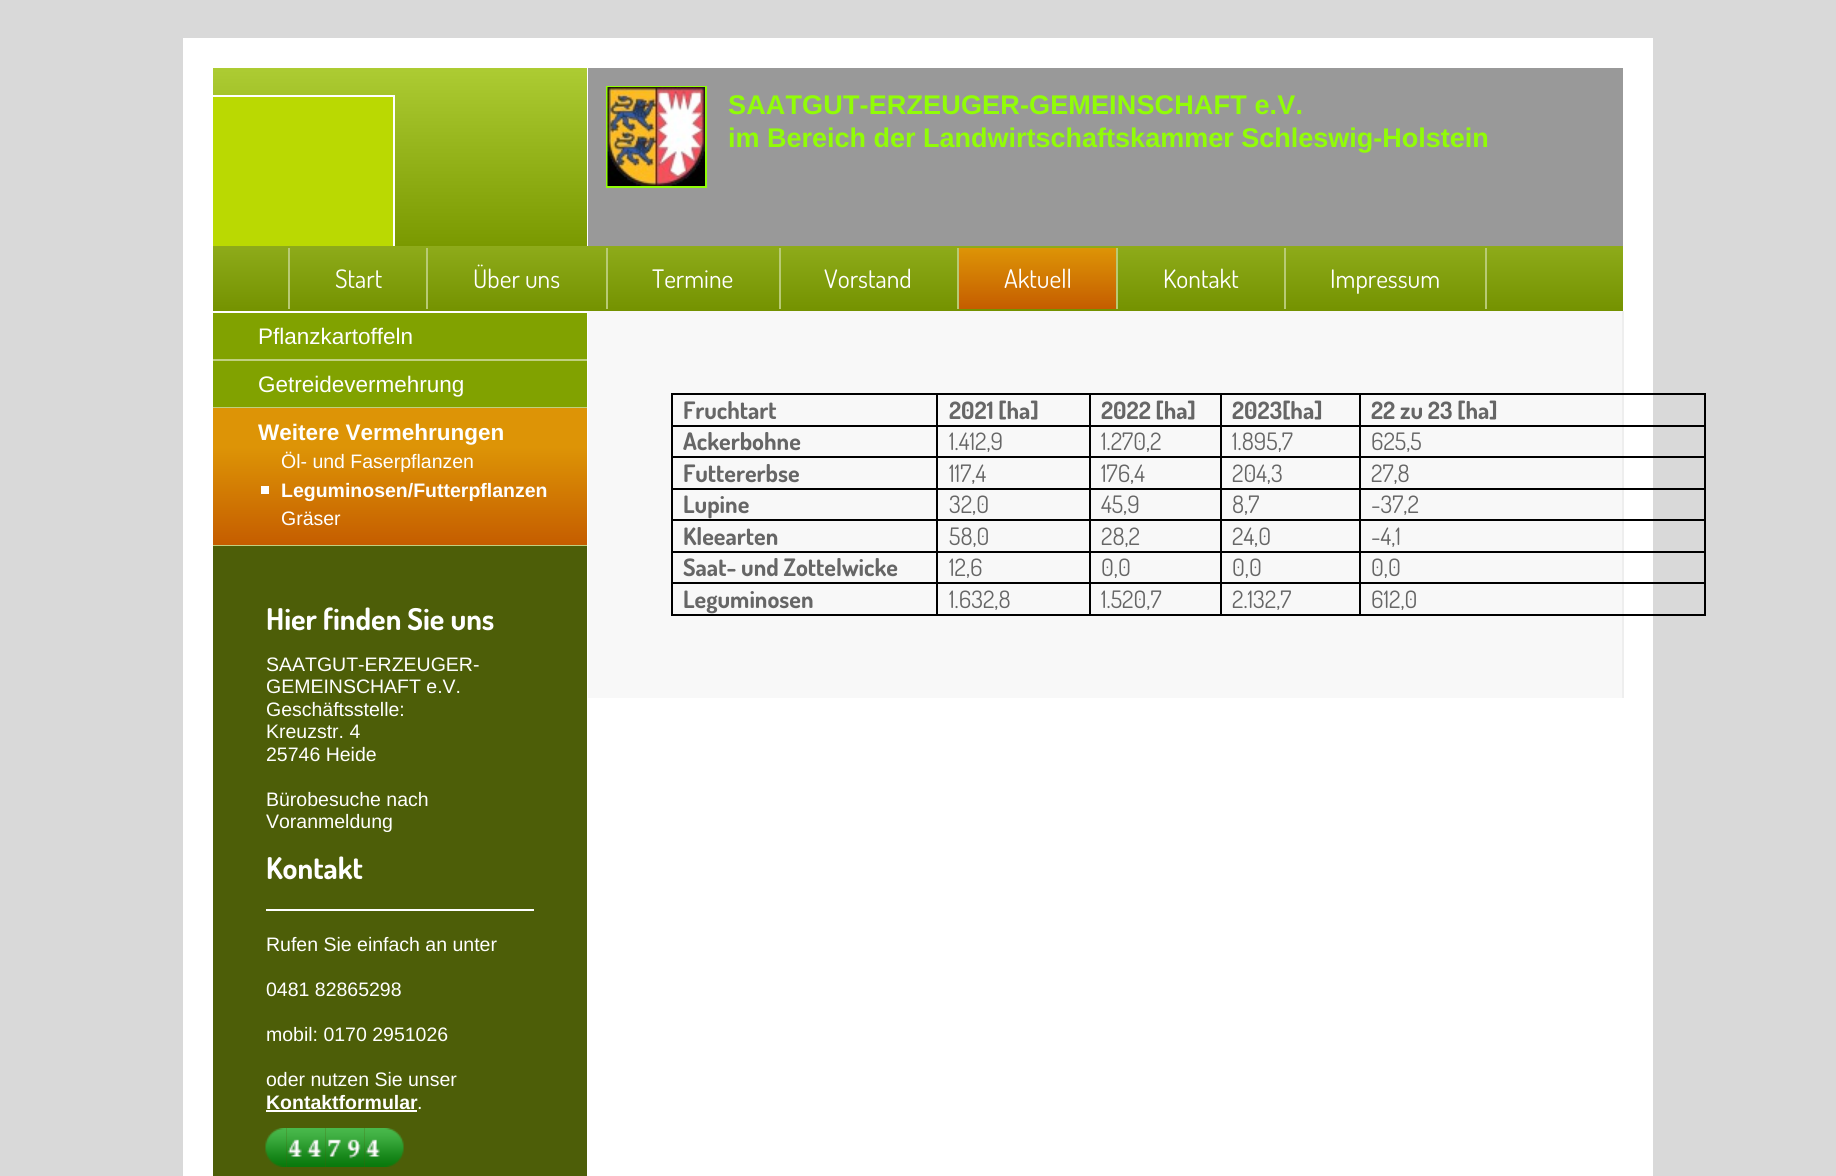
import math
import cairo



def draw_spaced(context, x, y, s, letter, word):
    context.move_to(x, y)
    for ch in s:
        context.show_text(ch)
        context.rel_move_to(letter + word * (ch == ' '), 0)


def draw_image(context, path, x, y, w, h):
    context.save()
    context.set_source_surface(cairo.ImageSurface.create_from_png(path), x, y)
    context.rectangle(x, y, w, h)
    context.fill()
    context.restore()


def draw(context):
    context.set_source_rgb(217 / 255, 217 / 255, 217 / 255)
    context.paint()
    context.set_source_rgb(1, 1, 1)
    context.rectangle(183, 38, 1470, 1138)
    context.fill()
    gradient = cairo.LinearGradient(918, 67, 918, 246)
    gradient.add_color_stop_rgba(0, 173 / 255, 204 / 255, 51 / 255, 1)
    gradient.add_color_stop_rgba(1, 122 / 255, 153 / 255, 0, 1)
    context.set_source(gradient)
    context.rectangle(213, 68, 374, 178)
    context.fill()
    context.set_source_rgb(186 / 255, 217 / 255, 2 / 255)
    context.rectangle(213, 97, 180, 149)
    context.fill()
    context.set_source_rgb(1, 1, 1)
    context.rectangle(213, 95, 182, 2)
    context.fill()
    context.rectangle(393, 95, 2, 151)
    context.fill()
    context.set_source_rgb(153 / 255, 153 / 255, 153 / 255)
    context.rectangle(588, 68, 1035, 178)
    context.fill()
    context.rectangle(607, 87, 99, 100)
    context.set_source_rgb(145 / 255, 253 / 255, 7 / 255)
    context.stroke()
    draw_image(context, "images/1.png", 607, 87, 98, 99)
    gradient = cairo.LinearGradient(918, 246, 918, 311)
    gradient.add_color_stop_rgba(0, 142 / 255, 171 / 255, 26 / 255, 1)
    gradient.add_color_stop_rgba(1, 116 / 255, 146 / 255, 0, 1)
    context.set_source(gradient)
    context.rectangle(213, 246, 1410, 65)
    context.fill()
    context.set_source_rgb(184 / 255, 202 / 255, 116 / 255)
    context.rectangle(288, 248, 2, 61)
    context.fill()
    context.rectangle(426, 248, 2, 61)
    context.fill()
    context.rectangle(606, 248, 2, 61)
    context.fill()
    context.rectangle(779, 248, 2, 61)
    context.fill()
    context.rectangle(957, 248, 2, 61)
    context.fill()
    gradient = cairo.LinearGradient(1037, 248, 1037, 309)
    gradient.add_color_stop_rgba(0, 221 / 255, 148 / 255, 6 / 255, 1)
    gradient.add_color_stop_rgba(1, 197 / 255, 93 / 255, 0, 1)
    context.set_source(gradient)
    context.rectangle(959, 248, 157, 61)
    context.fill()
    context.set_source_rgb(184 / 255, 202 / 255, 116 / 255)
    context.rectangle(1116, 248, 2, 61)
    context.fill()
    context.rectangle(1485, 248, 2, 61)
    context.fill()
    context.rectangle(1284, 248, 2, 61)
    context.fill()
    context.set_source_rgb(129 / 255, 162 / 255, 0)
    context.rectangle(213, 313, 374, 94)
    context.fill()
    context.set_source_rgb(192 / 255, 208 / 255, 127 / 255)
    context.rectangle(213, 359, 374, 2)
    context.fill()
    context.rectangle(213, 407, 374, 1)
    context.fill()
    context.set_source_rgb(221 / 255, 148 / 255, 6 / 255)
    context.rectangle(213, 408, 374, 39)
    context.fill()
    gradient = cairo.LinearGradient(400, 447, 400, 545)
    gradient.add_color_stop_rgba(0, 221 / 255, 148 / 255, 6 / 255, 1)
    gradient.add_color_stop_rgba(1, 197 / 255, 93 / 255, 0, 1)
    context.set_source(gradient)
    context.rectangle(213, 447, 374, 98)
    context.fill()
    context.set_source_rgb(192 / 255, 208 / 255, 127 / 255)
    context.rectangle(213, 545, 374, 1)
    context.fill()
    context.set_source_rgb(1, 1, 1)
    context.rectangle(261, 486, 8, 8)
    context.fill()
    context.set_source_rgb(77 / 255, 94 / 255, 8 / 255)
    context.rectangle(213, 546, 374, 630)
    context.fill()
    context.set_source_rgb(1, 1, 1)
    context.rectangle(266, 909, 268, 2)
    context.fill()
    context.rectangle(266, 1110, 151, 2)
    context.fill()
    draw_image(context, "images/2.png", 265, 1128, 22, 39)
    draw_image(context, "images/3.png", 286, 1128, 20, 39)
    draw_image(context, "images/4.png", 306, 1128, 20, 39)
    draw_image(context, "images/5.png", 325, 1128, 20, 39)
    draw_image(context, "images/6.png", 345, 1128, 20, 39)
    draw_image(context, "images/3.png", 364, 1128, 20, 39)
    draw_image(context, "images/7.png", 384, 1128, 20, 39)
    context.set_source_rgb(248 / 255, 248 / 255, 248 / 255)
    context.rectangle(588, 311, 1034, 387)
    context.fill()
    context.set_source_rgb(238 / 255, 238 / 255, 238 / 255)
    context.rectangle(1622, 311, 2, 387)
    context.fill()
    context.set_source_rgb(0, 0, 0)
    context.rectangle(671, 393, 1035, 2)
    context.fill()
    context.rectangle(1704, 425, 2, 190)
    context.fill()
    context.rectangle(1704, 393, 2, 33)
    context.fill()
    context.rectangle(1359, 614, 347, 2)
    context.fill()
    context.rectangle(1359, 582, 2, 33)
    context.fill()
    context.rectangle(1359, 582, 347, 2)
    context.fill()
    context.rectangle(1359, 551, 2, 33)
    context.fill()
    context.rectangle(1359, 551, 347, 2)
    context.fill()
    context.rectangle(1359, 519, 2, 33)
    context.fill()
    context.rectangle(1359, 519, 347, 2)
    context.fill()
    context.rectangle(1359, 488, 2, 33)
    context.fill()
    context.rectangle(1359, 488, 347, 2)
    context.fill()
    context.rectangle(1359, 456, 2, 33)
    context.fill()
    context.rectangle(1359, 456, 347, 2)
    context.fill()
    context.rectangle(1359, 425, 2, 33)
    context.fill()
    context.rectangle(1359, 425, 347, 2)
    context.fill()
    context.rectangle(1359, 393, 2, 33)
    context.fill()
    context.rectangle(1220, 614, 141, 2)
    context.fill()
    context.rectangle(1220, 582, 2, 33)
    context.fill()
    context.rectangle(1220, 582, 141, 2)
    context.fill()
    context.rectangle(1220, 551, 2, 33)
    context.fill()
    context.rectangle(1220, 551, 141, 2)
    context.fill()
    context.rectangle(1220, 519, 2, 33)
    context.fill()
    context.rectangle(1220, 519, 141, 2)
    context.fill()
    context.rectangle(1220, 488, 2, 33)
    context.fill()
    context.rectangle(1220, 488, 141, 2)
    context.fill()
    context.rectangle(1220, 456, 2, 33)
    context.fill()
    context.rectangle(1220, 456, 141, 2)
    context.fill()
    context.rectangle(1220, 425, 2, 33)
    context.fill()
    context.rectangle(1220, 425, 141, 2)
    context.fill()
    context.rectangle(1220, 393, 2, 33)
    context.fill()
    context.rectangle(1089, 614, 132, 2)
    context.fill()
    context.rectangle(1089, 582, 2, 33)
    context.fill()
    context.rectangle(1089, 582, 132, 2)
    context.fill()
    context.rectangle(1089, 551, 2, 33)
    context.fill()
    context.rectangle(1089, 551, 132, 2)
    context.fill()
    context.rectangle(1089, 519, 2, 33)
    context.fill()
    context.rectangle(1089, 519, 132, 2)
    context.fill()
    context.rectangle(1089, 488, 2, 33)
    context.fill()
    context.rectangle(1089, 488, 132, 2)
    context.fill()
    context.rectangle(1089, 456, 2, 33)
    context.fill()
    context.rectangle(1089, 456, 132, 2)
    context.fill()
    context.rectangle(1089, 425, 2, 33)
    context.fill()
    context.rectangle(1089, 425, 132, 2)
    context.fill()
    context.rectangle(1089, 393, 2, 33)
    context.fill()
    context.rectangle(936, 614, 155, 2)
    context.fill()
    context.rectangle(936, 582, 2, 33)
    context.fill()
    context.rectangle(936, 582, 155, 2)
    context.fill()
    context.rectangle(936, 551, 2, 33)
    context.fill()
    context.rectangle(936, 551, 155, 2)
    context.fill()
    context.rectangle(936, 519, 2, 33)
    context.fill()
    context.rectangle(936, 519, 155, 2)
    context.fill()
    context.rectangle(936, 488, 2, 33)
    context.fill()
    context.rectangle(936, 488, 155, 2)
    context.fill()
    context.rectangle(936, 456, 2, 33)
    context.fill()
    context.rectangle(936, 456, 155, 2)
    context.fill()
    context.rectangle(936, 425, 2, 33)
    context.fill()
    context.rectangle(936, 425, 155, 2)
    context.fill()
    context.rectangle(936, 393, 2, 33)
    context.fill()
    context.rectangle(671, 614, 267, 2)
    context.fill()
    context.rectangle(671, 582, 2, 33)
    context.fill()
    context.rectangle(671, 582, 267, 2)
    context.fill()
    context.rectangle(671, 551, 2, 33)
    context.fill()
    context.rectangle(671, 551, 267, 2)
    context.fill()
    context.rectangle(671, 519, 2, 33)
    context.fill()
    context.rectangle(671, 519, 267, 2)
    context.fill()
    context.rectangle(671, 488, 2, 33)
    context.fill()
    context.rectangle(671, 488, 267, 2)
    context.fill()
    context.rectangle(671, 456, 2, 33)
    context.fill()
    context.rectangle(671, 456, 267, 2)
    context.fill()
    context.rectangle(671, 425, 2, 33)
    context.fill()
    context.rectangle(671, 425, 267, 2)
    context.fill()
    context.rectangle(671, 393, 2, 33)
    context.fill()
    context.select_font_face("Liberation Sans", cairo.FontSlant.NORMAL, cairo.FontWeight.BOLD)
    context.set_font_size(27)
    context.set_source_rgb(145 / 255, 253 / 255, 7 / 255)
    draw_spaced(context, 728, 114, "SAATGUT-ERZEUGER-GEMEINSCHAFT e.V.", 0.15, 0)
    context.move_to(728, 147)
    context.show_text("im Bereich der Landwirtschaftskammer Schleswig-Holstein")
    context.select_font_face("Dosis")
    context.set_font_size(25.5)
    context.set_source_rgb(1, 1, 1)
    context.move_to(335, 288)
    context.show_text("Start")
    context.move_to(473, 288)
    context.show_text("Über uns")
    context.move_to(652, 288)
    context.show_text("Termine")
    context.move_to(824, 288)
    context.show_text("Vorstand")
    context.move_to(1004, 288)
    context.show_text("Aktuell")
    context.move_to(1163, 288)
    context.show_text("Kontakt")
    context.move_to(1330, 288)
    context.show_text("Impressum")
    context.select_font_face("Liberation Sans")
    context.set_font_size(22.5)
    context.move_to(258, 344)
    context.show_text("Pflanzkartoffeln")
    context.move_to(258, 392)
    context.show_text("Getreidevermehrung")
    context.select_font_face("Liberation Sans", cairo.FontSlant.NORMAL, cairo.FontWeight.BOLD)
    context.move_to(258, 440)
    context.show_text("Weitere Vermehrungen")
    context.select_font_face("Liberation Sans")
    context.set_font_size(19.5)
    context.move_to(281, 468)
    context.show_text("Öl- und Faserpflanzen")
    context.select_font_face("Liberation Sans", cairo.FontSlant.NORMAL, cairo.FontWeight.BOLD)
    context.move_to(281, 497)
    context.show_text("Leguminosen/Futterpflanzen")
    context.select_font_face("Liberation Sans")
    context.move_to(281, 525)
    context.show_text("Gräser")
    context.select_font_face("Dosis", cairo.FontSlant.NORMAL, cairo.FontWeight.BOLD)
    context.set_font_size(30)
    context.move_to(266, 630)
    context.show_text("Hier finden Sie uns")
    context.select_font_face("Liberation Sans")
    context.set_font_size(19.5)
    context.move_to(266, 671)
    context.show_text("SAATGUT-ERZEUGER-")
    context.move_to(266, 693)
    context.show_text("GEMEINSCHAFT e.V.")
    context.move_to(266, 716)
    context.show_text("Geschäftsstelle:")
    context.move_to(266, 738)
    context.show_text("Kreuzstr. 4")
    context.move_to(266, 761)
    context.show_text("25746 Heide")
    context.move_to(266, 806)
    context.show_text("Bürobesuche nach")
    context.move_to(266, 828)
    context.show_text("Voranmeldung")
    context.select_font_face("Dosis", cairo.FontSlant.NORMAL, cairo.FontWeight.BOLD)
    context.set_font_size(30)
    context.move_to(266, 879)
    context.show_text("Kontakt")
    context.select_font_face("Liberation Sans")
    context.set_font_size(19.5)
    context.move_to(266, 951)
    context.show_text("Rufen Sie einfach an unter")
    context.move_to(266, 996)
    context.show_text("0481 82865298")
    context.move_to(266, 1041)
    context.show_text("mobil: 0170 2951026")
    context.move_to(266, 1086)
    context.show_text("oder nutzen Sie unser")
    context.select_font_face("Liberation Sans", cairo.FontSlant.NORMAL, cairo.FontWeight.BOLD)
    context.move_to(266, 1109)
    context.show_text("Kontaktformular")
    context.select_font_face("Liberation Sans")
    context.move_to(417, 1109)
    context.show_text(".")
    context.select_font_face("Dosis", cairo.FontSlant.NORMAL, cairo.FontWeight.BOLD)
    context.set_font_size(24)
    context.set_source_rgb(102 / 255, 102 / 255, 102 / 255)
    context.move_to(683, 419)
    context.show_text("Fruchtart")
    context.move_to(949, 419)
    context.show_text("2021 [ha]")
    context.move_to(1101, 419)
    context.show_text("2022 [ha]")
    context.move_to(1232, 419)
    context.show_text("2023[ha]")
    context.move_to(1371, 419)
    context.show_text("22 zu 23 [ha]")
    context.move_to(683, 450)
    context.show_text("Ackerbohne")
    context.select_font_face("Dosis")
    context.move_to(949, 450)
    context.show_text("1.412,9")
    context.move_to(1101, 450)
    context.show_text("1.270,2")
    context.move_to(1232, 450)
    context.show_text("1.895,7")
    context.move_to(1371, 450)
    context.show_text("625,5")
    context.select_font_face("Dosis", cairo.FontSlant.NORMAL, cairo.FontWeight.BOLD)
    context.move_to(683, 482)
    context.show_text("Futtererbse")
    context.select_font_face("Dosis")
    context.move_to(949, 482)
    context.show_text("117,4")
    context.move_to(1101, 482)
    context.show_text("176,4")
    context.move_to(1232, 482)
    context.show_text("204,3")
    context.move_to(1371, 482)
    context.show_text("27,8")
    context.select_font_face("Dosis", cairo.FontSlant.NORMAL, cairo.FontWeight.BOLD)
    context.move_to(683, 513)
    context.show_text("Lupine")
    context.select_font_face("Dosis")
    context.move_to(949, 513)
    context.show_text("32,0")
    context.move_to(1101, 513)
    context.show_text("45,9")
    context.move_to(1232, 513)
    context.show_text("8,7")
    context.move_to(1371, 513)
    context.show_text("-37,2")
    context.select_font_face("Dosis", cairo.FontSlant.NORMAL, cairo.FontWeight.BOLD)
    context.move_to(683, 545)
    context.show_text("Kleearten")
    context.select_font_face("Dosis")
    context.move_to(949, 545)
    context.show_text("58,0")
    context.move_to(1101, 545)
    context.show_text("28,2")
    context.move_to(1232, 545)
    context.show_text("24,0")
    context.move_to(1371, 545)
    context.show_text("-4,1")
    context.select_font_face("Dosis", cairo.FontSlant.NORMAL, cairo.FontWeight.BOLD)
    context.move_to(683, 576)
    context.show_text("Saat- und Zottelwicke")
    context.select_font_face("Dosis")
    context.move_to(949, 576)
    context.show_text("12,6")
    context.move_to(1101, 576)
    context.show_text("0,0")
    context.move_to(1232, 576)
    context.show_text("0,0")
    context.move_to(1371, 576)
    context.show_text("0,0")
    context.select_font_face("Dosis", cairo.FontSlant.NORMAL, cairo.FontWeight.BOLD)
    context.move_to(683, 608)
    context.show_text("Leguminosen")
    context.select_font_face("Dosis")
    context.move_to(949, 608)
    context.show_text("1.632,8")
    context.move_to(1101, 608)
    context.show_text("1.520,7")
    context.move_to(1232, 608)
    context.show_text("2.132,7")
    context.move_to(1371, 608)
    context.show_text("612,0")


surface = cairo.ImageSurface(cairo.Format.RGB24, 1836, 1176)
context = cairo.Context(surface)
options = cairo.FontOptions()
options.set_hint_metrics(cairo.HintMetrics.OFF)
options.set_hint_style(cairo.HintStyle.NONE)
context.set_font_options(options)
context.set_miter_limit(4)
draw(context)
surface.write_to_png("out.png")
